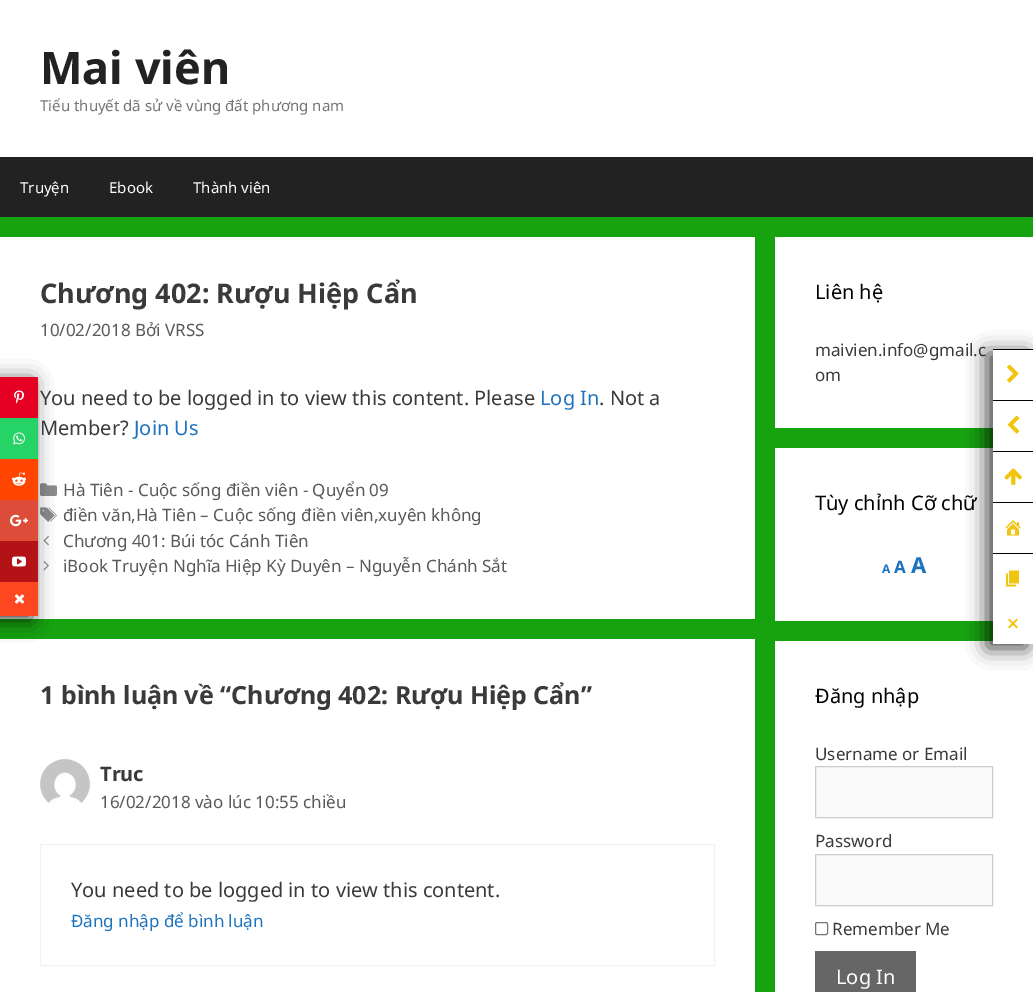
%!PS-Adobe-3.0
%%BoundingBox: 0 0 1033 992
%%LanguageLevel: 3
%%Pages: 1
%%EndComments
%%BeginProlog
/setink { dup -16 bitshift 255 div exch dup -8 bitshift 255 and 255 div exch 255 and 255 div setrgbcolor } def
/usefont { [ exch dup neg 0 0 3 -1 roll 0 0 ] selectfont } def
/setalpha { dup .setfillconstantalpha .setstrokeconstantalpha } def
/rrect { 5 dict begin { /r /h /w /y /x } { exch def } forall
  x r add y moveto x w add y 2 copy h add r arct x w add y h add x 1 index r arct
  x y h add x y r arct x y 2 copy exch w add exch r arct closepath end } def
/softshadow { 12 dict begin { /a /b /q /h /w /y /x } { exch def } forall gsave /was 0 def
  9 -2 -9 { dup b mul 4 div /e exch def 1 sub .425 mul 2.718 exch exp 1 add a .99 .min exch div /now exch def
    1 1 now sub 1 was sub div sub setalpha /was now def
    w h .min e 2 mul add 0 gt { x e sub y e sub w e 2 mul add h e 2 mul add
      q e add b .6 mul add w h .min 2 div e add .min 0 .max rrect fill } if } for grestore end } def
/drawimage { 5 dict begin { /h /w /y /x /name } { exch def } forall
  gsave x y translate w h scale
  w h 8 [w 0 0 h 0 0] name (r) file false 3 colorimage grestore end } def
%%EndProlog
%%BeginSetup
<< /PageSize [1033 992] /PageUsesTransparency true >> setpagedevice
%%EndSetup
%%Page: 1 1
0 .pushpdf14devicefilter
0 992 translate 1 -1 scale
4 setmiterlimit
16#17A310 setink
0 0 1033 992 rectfill
16#FFFFFF setink
0 0 1033 157 rectfill
/NotoSans-Bold 45 usefont
16#222222 setink
40 84 moveto (Mai viên) show
/NotoSans-Regular 15 usefont
16#757575 setink
40 111 moveto (Tiểu thuyết dã sử về vùng đất phương nam) show
16#222222 setink
0 157 1033 60 rectfill
16#FFFFFF setink
[
    [(Truyện) 20 193]
    [(Ebook) 109 193]
    [(Thành viên) 193 193]
] { aload pop moveto show } forall
0 237 755 382 rectfill
(img7.raw) 40 483 17 13 drawimage
(img8.raw) 40 507 17 15 drawimage
(img9.raw) 43 536 6 10 drawimage
(img10.raw) 43 561 6 10 drawimage
0 639 755 353 rectfill
16#000000 setink
-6 381 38 239 0 10 0.75 softshadow
16#E60023 setink
0 377 38 41 rectfill
(img1.raw) 14 390 10 14 drawimage
16#25D366 setink
0 418 38 41 rectfill
(img2.raw) 13 432 12 13 drawimage
16#FF4500 setink
0 459 38 41 rectfill
(img3.raw) 12 472 14 14 drawimage
16#DD4B39 setink
0 500 38 41 rectfill
(img4.raw) 10 514 18 13 drawimage
16#B31217 setink
0 541 38 41 rectfill
(img5.raw) 12 556 14 11 drawimage
16#FD4721 setink
0 582 38 34 rectfill
(img6.raw) 14 594 11 10 drawimage
/NotoSans-Bold 27 usefont
16#3A3A3A setink
40 303 moveto (Chương 402: Rượu Hiệp Cẩn) show
/NotoSans-Regular 17 usefont
16#595959 setink
40 336 moveto (10/02/2018 Bởi VRSS) show
/NotoSans-Regular 20 usefont
16#3A3A3A setink
40 405 moveto (You need to be logged in to view this content. Please) show
16#1E73BE setink
540 405 moveto (Log In) show
16#3A3A3A setink
599 405 moveto (. Not a) show
40 435 moveto (Member?) show
16#1E73BE setink
134 435 moveto (Join Us) show
/NotoSans-Regular 17 usefont
16#595959 setink
[
    [(Hà Tiên - Cuộc sống điền viên - Quyển 09) 63 496]
    [(điền văn,Hà Tiên – Cuộc sống điền viên,xuyên không) 63 521]
    [(Chương 401: Búi tóc Cánh Tiên) 63 547]
    [(iBook Truyện Nghĩa Hiệp Kỳ Duyên – Nguyễn Chánh Sắt) 63 572]
] { aload pop moveto show } forall
/NotoSans-Bold 25 usefont
16#3A3A3A setink
40 704 moveto (1 bình luận về “Chương 402: Rượu Hiệp Cẩn”) show
(img11.raw) 40 759 50 47 drawimage
/NotoSans-Bold 20 usefont
100 781 moveto (Truc) show
/NotoSans-Regular 17 usefont
16#595959 setink
100 808 moveto (16/02/2018 vào lúc 10:55 chiều) show
16#F2F2F2 setink
40.5 844.5 674 121 rectstroke
/NotoSans-Regular 20 usefont
16#3A3A3A setink
71 897 moveto (You need to be logged in to view this content.) show
/NotoSans-Regular 17 usefont
16#1E73BE setink
71 927 moveto (Đăng nhập để bình luận) show
16#FFFFFF setink
775 237 258 191 rectfill
/NotoSans-Regular 20 usefont
16#000000 setink
815 299 moveto (Liên hệ) show
/NotoSans-Regular 17 usefont
16#3A3A3A setink
815 356 moveto (maivien.info@gmail.c) show
815 381 moveto (om) show
16#FFFFFF setink
775 448 258 173 rectfill
/NotoSans-Regular 20 usefont
16#000000 setink
815 510 moveto (Tùy chỉnh Cỡ chữ) show
/NotoSans-Bold 12 usefont
16#1E73BE setink
882 573 moveto (A) show
/NotoSans-Bold 17 usefont
894 573 moveto (A) show
/NotoSans-Bold 22 usefont
911 573 moveto (A) show
16#FFFFFF setink
775 641 258 351 rectfill
/NotoSans-Regular 20 usefont
16#000000 setink
815 703 moveto (Đăng nhập) show
/NotoSans-Regular 17 usefont
16#3A3A3A setink
815 760 moveto (Username or Email) show
16#FAFAFA setink
815.5 766.5 moveto 992.5 766.5 lineto 992.5 817.5 lineto 815.5 817.5 lineto closepath gsave fill grestore
16#CCCCCC setink
stroke
16#3A3A3A setink
815 847 moveto (Password) show
16#FAFAFA setink
815.5 854.5 moveto 992.5 854.5 lineto 992.5 905.5 lineto 815.5 905.5 lineto closepath gsave fill grestore
16#CCCCCC setink
stroke
16#767676 setink
815.5 922.5 12 12 1.5 rrect stroke
16#3A3A3A setink
832 935 moveto (Remember Me) show
16#666666 setink
815 951 101 41 rectfill
/NotoSans-Regular 20 usefont
16#FFFFFF setink
836 984 moveto (Log In) show
gsave
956 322 moveto 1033 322 lineto 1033 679 lineto 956 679 lineto closepath 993 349 moveto 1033 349 lineto 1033 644 lineto 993 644 lineto closepath eoclip newpath
16#000000 setink
987 353 40 295 0 10 0.75 softshadow
grestore
16#000000 setink
993 349 40 1 rectfill
993 400 40 1 rectfill
(img12.raw) 1007 364 12 19 drawimage
16#FFFFFF setink
993 428 40 20 rectfill
16#000000 setink
993 451 40 1 rectfill
(img13.raw) 1007 415 13 19 drawimage
993 502 40 1 rectfill
(img14.raw) 1004 468 18 17 drawimage
993 553 40 1 rectfill
(img15.raw) 1005 520 16 16 drawimage
(img16.raw) 1006 570 13 17 drawimage
16#FFFFFF setink
993 621 40 23 rectfill
(img17.raw) 1008 618 10 11 drawimage
.poppdf14devicefilter showpage
%%EOF
